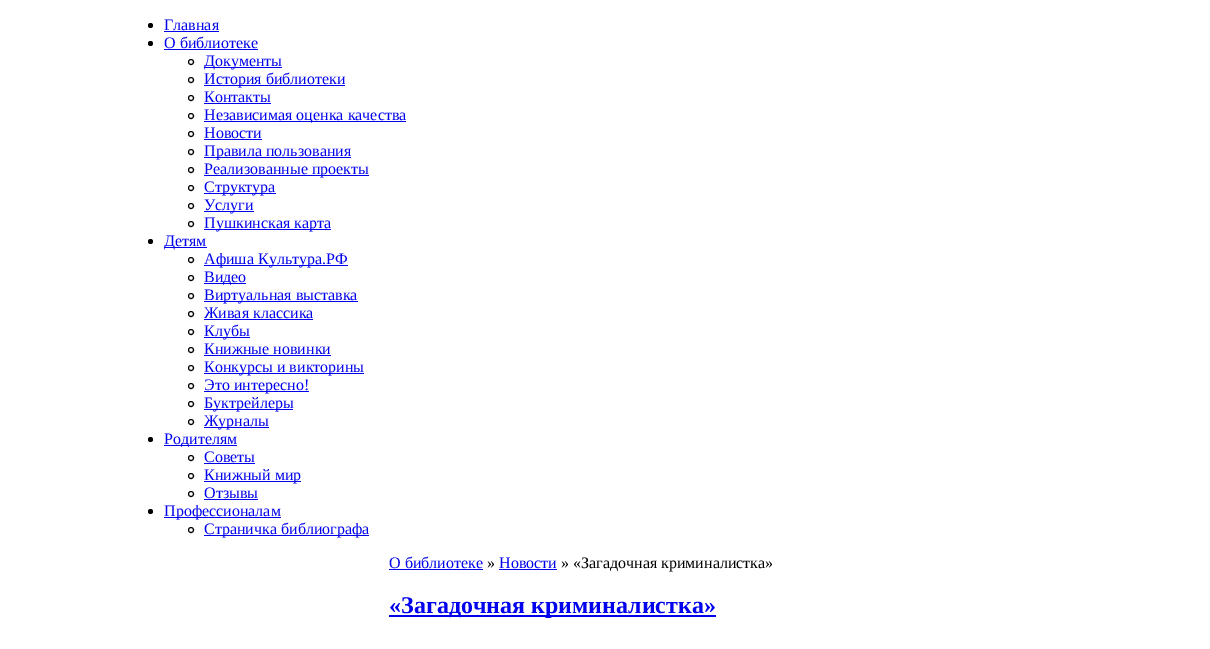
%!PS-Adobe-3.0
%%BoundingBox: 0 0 1210 649
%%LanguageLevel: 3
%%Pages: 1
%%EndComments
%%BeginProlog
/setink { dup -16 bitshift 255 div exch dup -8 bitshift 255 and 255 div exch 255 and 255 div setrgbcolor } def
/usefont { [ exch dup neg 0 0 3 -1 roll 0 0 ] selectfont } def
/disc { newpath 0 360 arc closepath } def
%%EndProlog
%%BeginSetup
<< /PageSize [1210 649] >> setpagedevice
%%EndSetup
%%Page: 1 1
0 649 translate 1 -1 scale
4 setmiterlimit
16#FFFFFF setink
0 0 1210 649 rectfill
16#000000 setink
150.5 25.5 2.5 disc fill
/LiberationSerif-Regular 16 usefont
16#0000EE setink
164 30 moveto (Главная) show
164 31 55 1 rectfill
16#000000 setink
150.5 43.5 2.5 disc fill
16#0000EE setink
164 48 moveto (О библиотеке) show
164 49 94 1 rectfill
16#000000 setink
191 62 2.5 disc stroke
16#0000EE setink
204 67 78 1 rectfill
204 66 moveto (Документы) show
16#000000 setink
191 80 2.5 disc stroke
16#0000EE setink
204 85 141 1 rectfill
204 84 moveto (История библиотеки) show
16#000000 setink
191 98 2.5 disc stroke
16#0000EE setink
204 102 moveto (Контакты) show
204 103 67 1 rectfill
16#000000 setink
191 116 2.5 disc stroke
16#0000EE setink
204 121 202 1 rectfill
204 120 moveto (Независимая оценка качества) show
16#000000 setink
191 134 2.5 disc stroke
16#0000EE setink
204 138 moveto (Новости) show
204 139 58 1 rectfill
16#000000 setink
191 152 2.5 disc stroke
16#0000EE setink
204 157 147 1 rectfill
204 156 moveto (Правила пользования) show
16#000000 setink
191 170 2.5 disc stroke
16#0000EE setink
204 175 165 1 rectfill
204 174 moveto (Реализованные проекты) show
16#000000 setink
191 188 2.5 disc stroke
16#0000EE setink
204 193 72 1 rectfill
204 192 moveto (Структура) show
16#000000 setink
191 206 2.5 disc stroke
16#0000EE setink
204 211 50 1 rectfill
204 210 moveto (Услуги) show
16#000000 setink
191 224 2.5 disc stroke
16#0000EE setink
204 229 127 1 rectfill
204 228 moveto (Пушкинская карта) show
16#000000 setink
150.5 241.5 2.5 disc fill
16#0000EE setink
164 247 43 1 rectfill
164 246 moveto (Детям) show
16#000000 setink
191 260 2.5 disc stroke
16#0000EE setink
204 265 144 1 rectfill
204 264 moveto (Афиша Культура.РФ) show
16#000000 setink
191 278 2.5 disc stroke
16#0000EE setink
204 283 42 1 rectfill
204 282 moveto (Видео) show
16#000000 setink
191 296 2.5 disc stroke
16#0000EE setink
204 301 154 1 rectfill
204 300 moveto (Виртуальная выставка) show
16#000000 setink
191 314 2.5 disc stroke
16#0000EE setink
204 318 moveto (Живая классика) show
204 319 109 1 rectfill
16#000000 setink
191 332 2.5 disc stroke
16#0000EE setink
204 337 46 1 rectfill
204 336 moveto (Клубы) show
16#000000 setink
191 350 2.5 disc stroke
16#0000EE setink
204 354 moveto (Книжные новинки) show
204 355 127 1 rectfill
16#000000 setink
191 368 2.5 disc stroke
16#0000EE setink
204 373 160 1 rectfill
204 372 moveto (Конкурсы и викторины) show
16#000000 setink
191 386 2.5 disc stroke
16#0000EE setink
204 391 105 1 rectfill
204 390 moveto (Это интересно!) show
16#000000 setink
191 404 2.5 disc stroke
16#0000EE setink
204 409 89 1 rectfill
204 408 moveto (Буктрейлеры) show
16#000000 setink
191 422 2.5 disc stroke
16#0000EE setink
204 427 65 1 rectfill
204 426 moveto (Журналы) show
16#000000 setink
150.5 439.5 2.5 disc fill
16#0000EE setink
164 445 73 1 rectfill
164 444 moveto (Родителям) show
16#000000 setink
191 458 2.5 disc stroke
16#0000EE setink
204 462 moveto (Советы) show
204 463 51 1 rectfill
16#000000 setink
191 476 2.5 disc stroke
16#0000EE setink
204 481 97 1 rectfill
204 480 moveto (Книжный мир) show
16#000000 setink
191 494 2.5 disc stroke
16#0000EE setink
204 498 moveto (Отзывы) show
204 499 54 1 rectfill
16#000000 setink
150.5 511.5 2.5 disc fill
16#0000EE setink
164 517 117 1 rectfill
164 516 moveto (Профессионалам) show
16#000000 setink
191 530 2.5 disc stroke
16#0000EE setink
204 535 165 1 rectfill
204 534 moveto (Страничка библиографа) show
389 568 moveto (О библиотеке) show
389 569 94 1 rectfill
16#000000 setink
487 568 moveto (») show
16#0000EE setink
499 568 moveto (Новости) show
499 569 58 1 rectfill
16#000000 setink
561 568 moveto (» «Загадочная криминалистка») show
16#0000EE setink
389 615 327 2 rectfill
/LiberationSerif-Bold 24 usefont
389 613 moveto («Загадочная криминалистка») show
showpage
%%EOF
